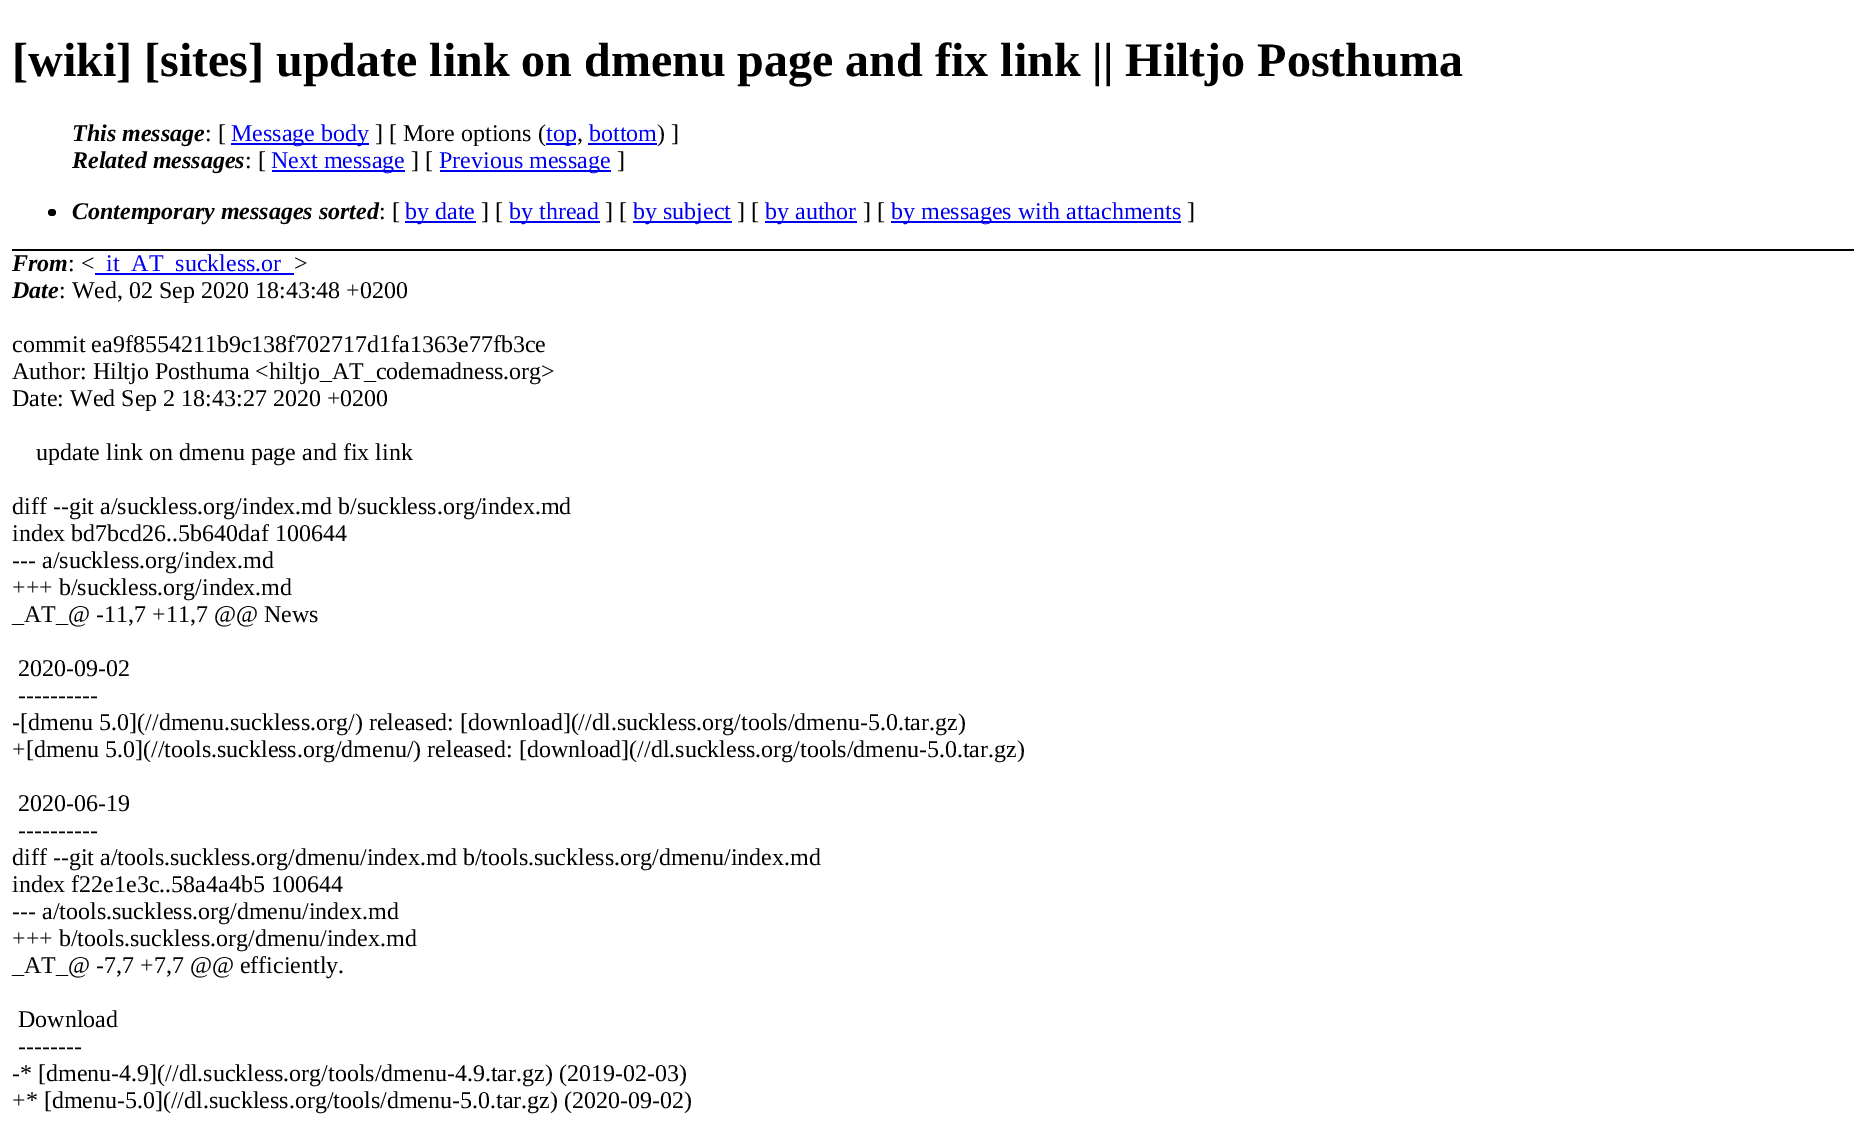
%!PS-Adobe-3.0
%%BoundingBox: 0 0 1865 1124
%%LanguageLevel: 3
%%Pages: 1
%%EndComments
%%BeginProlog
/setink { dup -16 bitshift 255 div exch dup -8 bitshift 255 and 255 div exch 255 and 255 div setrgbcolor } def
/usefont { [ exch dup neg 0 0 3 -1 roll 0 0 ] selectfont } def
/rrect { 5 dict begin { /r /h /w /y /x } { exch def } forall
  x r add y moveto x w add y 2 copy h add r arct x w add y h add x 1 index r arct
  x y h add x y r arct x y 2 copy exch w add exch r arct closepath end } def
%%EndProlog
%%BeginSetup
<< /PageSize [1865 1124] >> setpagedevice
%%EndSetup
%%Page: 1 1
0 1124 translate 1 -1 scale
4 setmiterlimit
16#FFFFFF setink
0 0 1865 1124 rectfill
16#000000 setink
12 249 1842 2 rectfill
/LiberationSerif-Bold 48 usefont
12 76 moveto ([wiki] [sites] update link on dmenu page and fix link || Hiltjo Posthuma) show
/LiberationSerif-BoldItalic 24 usefont
72 141 moveto (This message) show
/LiberationSerif-Regular 24 usefont
205 141 moveto (: [) show
16#0000EE setink
231 143 138 2 rectfill
231 141 moveto (Message body) show
16#000000 setink
375 141 moveto (] [ More options \() show
16#0000EE setink
546 143 30 2 rectfill
546 141 moveto (top) show
16#000000 setink
577 141 moveto (,) show
16#0000EE setink
589 141 moveto (bottom) show
588 143 69 2 rectfill
16#000000 setink
657 141 moveto (\) ]) show
/LiberationSerif-BoldItalic 24 usefont
72 168 moveto (Related messages) show
/LiberationSerif-Regular 24 usefont
245 168 moveto (: [) show
16#0000EE setink
272 170 133 2 rectfill
271 168 moveto (Next message) show
16#000000 setink
411 168 moveto (] [) show
16#0000EE setink
440 170 171 2 rectfill
439 168 moveto (Previous message) show
16#000000 setink
617 168 moveto (]) show
48 209 8 7 3.5 rrect fill
/LiberationSerif-BoldItalic 24 usefont
72 219 moveto (Contemporary messages sorted) show
/LiberationSerif-Regular 24 usefont
379 219 moveto (: [) show
16#0000EE setink
405 221 71 2 rectfill
405 219 moveto (by date) show
16#000000 setink
481 219 moveto (] [) show
16#0000EE setink
510 221 90 2 rectfill
509 219 moveto (by thread) show
16#000000 setink
605 219 moveto (] [) show
16#0000EE setink
633 221 99 2 rectfill
633 219 moveto (by subject) show
16#000000 setink
737 219 moveto (] [) show
16#0000EE setink
765 221 92 2 rectfill
765 219 moveto (by author) show
16#000000 setink
863 219 moveto (] [) show
16#0000EE setink
891 221 290 2 rectfill
891 219 moveto (by messages with attachments) show
16#000000 setink
1187 219 moveto (]) show
/LiberationSerif-BoldItalic 24 usefont
12 271 moveto (From) show
/LiberationSerif-Regular 24 usefont
68 271 moveto (: <) show
16#0000EE setink
95 273 199 2 rectfill
106 271 moveto (it_AT_suckless.or) show
16#000000 setink
294 271 moveto (>) show
/LiberationSerif-BoldItalic 24 usefont
12 298 moveto (Date) show
/LiberationSerif-Regular 24 usefont
[
    [(: Wed, 02 Sep 2020 18:43:48 +0200) 59 298]
    [(commit ea9f8554211b9c138f702717d1fa1363e77fb3ce) 12 352]
    [(Author: Hiltjo Posthuma <hiltjo_AT_codemadness.org>) 12 379]
    [(Date: Wed Sep 2 18:43:27 2020 +0200) 12 406]
    [(update link on dmenu page and fix link) 36 460]
    [(diff --git a/suckless.org/index.md b/suckless.org/index.md) 12 514]
    [(index bd7bcd26..5b640daf 100644) 12 541]
    [(--- a/suckless.org/index.md) 12 568]
    [(+++ b/suckless.org/index.md) 12 595]
    [(_AT_@ -11,7 +11,7 @@ News) 12 622]
    [(2020-09-02) 18 676]
    [(----------) 18 703]
    [(-[dmenu 5.0]\(//dmenu.suckless.org/\) released: [download]\(//dl.suckless.org/tools/dmenu-5.0.tar.gz\)) 12 730]
    [(+[dmenu 5.0]\(//tools.suckless.org/dmenu/\) released: [download]\(//dl.suckless.org/tools/dmenu-5.0.tar.gz\)) 12 757]
    [(2020-06-19) 18 811]
    [(----------) 18 838]
    [(diff --git a/tools.suckless.org/dmenu/index.md b/tools.suckless.org/dmenu/index.md) 12 865]
    [(index f22e1e3c..58a4a4b5 100644) 12 892]
    [(--- a/tools.suckless.org/dmenu/index.md) 12 919]
    [(+++ b/tools.suckless.org/dmenu/index.md) 12 946]
    [(_AT_@ -7,7 +7,7 @@ efficiently.) 12 973]
    [(Download) 18 1027]
    [(--------) 18 1054]
    [(-* [dmenu-4.9]\(//dl.suckless.org/tools/dmenu-4.9.tar.gz\) \(2019-02-03\)) 12 1081]
    [(+* [dmenu-5.0]\(//dl.suckless.org/tools/dmenu-5.0.tar.gz\) \(2020-09-02\)) 12 1108]
] { aload pop moveto show } forall
showpage
%%EOF
